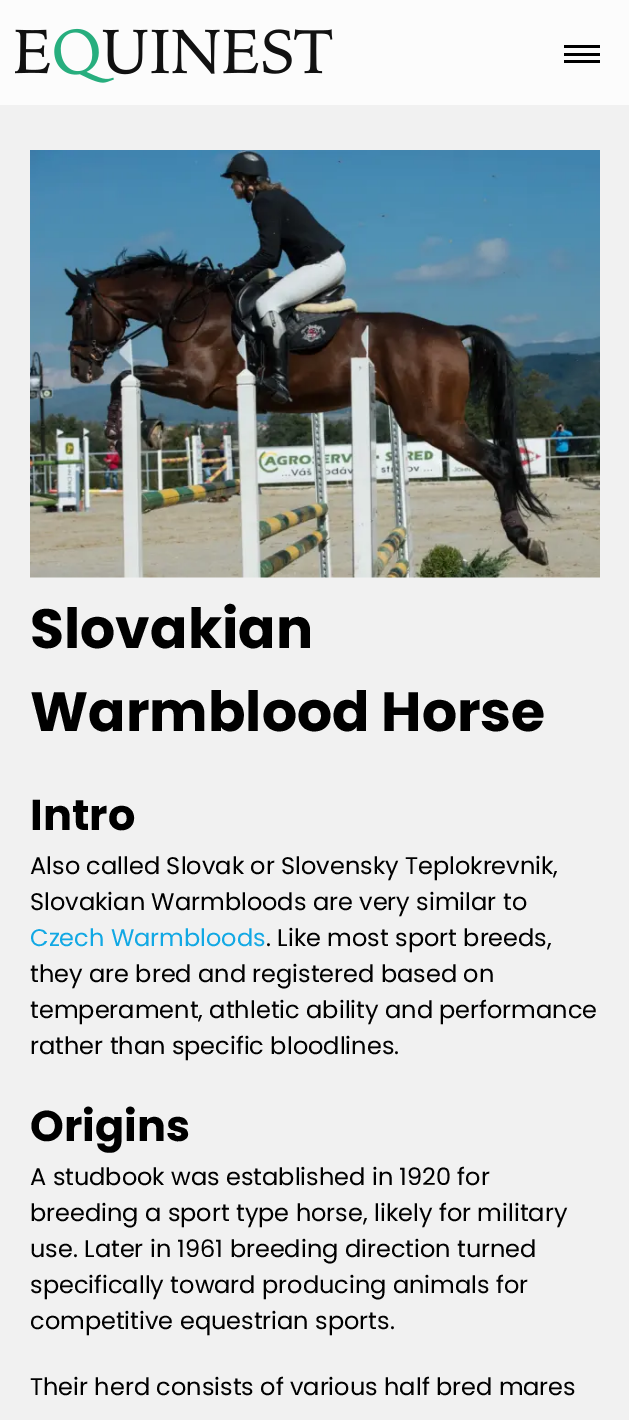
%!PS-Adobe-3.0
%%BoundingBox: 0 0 629 1420
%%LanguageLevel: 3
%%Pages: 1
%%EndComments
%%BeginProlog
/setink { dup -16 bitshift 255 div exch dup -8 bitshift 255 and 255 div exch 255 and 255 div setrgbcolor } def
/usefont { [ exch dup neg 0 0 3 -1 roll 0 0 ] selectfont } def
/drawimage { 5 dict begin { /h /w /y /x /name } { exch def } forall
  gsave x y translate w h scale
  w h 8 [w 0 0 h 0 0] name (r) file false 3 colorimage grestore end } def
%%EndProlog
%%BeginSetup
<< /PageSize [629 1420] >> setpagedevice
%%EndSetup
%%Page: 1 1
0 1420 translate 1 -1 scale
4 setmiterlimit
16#F1F1F1 setink
0 0 629 1420 rectfill
16#FCFCFC setink
0 0 629 105 rectfill
(img1.raw) 15 28 318 55 drawimage
[
    [564 53 36 3 16#000000]
    [564 45 36 3 16#000000]
    [564 60 36 3 16#000000]
] { aload pop setink rectfill } forall
(img2.raw) 30 150 570 428 drawimage
/Poppins-Bold 55.25 usefont
30 648 moveto (Slovakian) show
30 731 moveto (Warmblood Horse) show
/Poppins-Bold 43 usefont
30 830 moveto (Intro) show
/Poppins-Regular 24 usefont
30 874 moveto (Also called Slovak or Slovensky Teplokrevnik,) show
30 910 moveto (Slovakian Warmbloods are very similar to) show
16#11A8E4 setink
30 946 moveto (Czech Warmbloods) show
16#000000 setink
[
    [(. Like most sport breeds,) 266 946]
    [(they are bred and registered based on) 30 982]
    [(temperament, athletic ability and performance) 30 1018]
    [(rather than specific bloodlines.) 30 1054]
] { aload pop moveto show } forall
/Poppins-Bold 43 usefont
30 1141 moveto (Origins) show
/Poppins-Regular 24 usefont
[
    [(A studbook was established in 1920 for) 30 1185]
    [(breeding a sport type horse, likely for military) 30 1221]
    [(use. Later in 1961 breeding direction turned) 30 1257]
    [(specifically toward producing animals for) 30 1293]
    [(competitive equestrian sports.) 30 1329]
    [(Their herd consists of various half bred mares) 30 1395]
] { aload pop moveto show } forall
showpage
%%EOF
